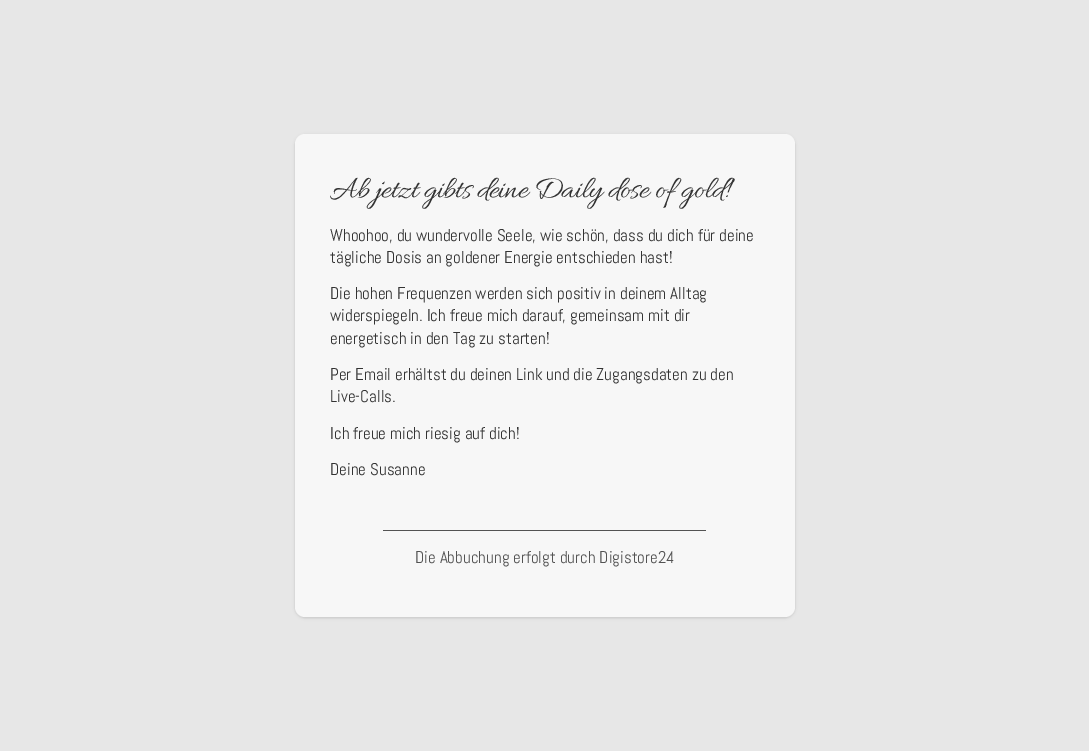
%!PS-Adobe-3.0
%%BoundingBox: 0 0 1089 751
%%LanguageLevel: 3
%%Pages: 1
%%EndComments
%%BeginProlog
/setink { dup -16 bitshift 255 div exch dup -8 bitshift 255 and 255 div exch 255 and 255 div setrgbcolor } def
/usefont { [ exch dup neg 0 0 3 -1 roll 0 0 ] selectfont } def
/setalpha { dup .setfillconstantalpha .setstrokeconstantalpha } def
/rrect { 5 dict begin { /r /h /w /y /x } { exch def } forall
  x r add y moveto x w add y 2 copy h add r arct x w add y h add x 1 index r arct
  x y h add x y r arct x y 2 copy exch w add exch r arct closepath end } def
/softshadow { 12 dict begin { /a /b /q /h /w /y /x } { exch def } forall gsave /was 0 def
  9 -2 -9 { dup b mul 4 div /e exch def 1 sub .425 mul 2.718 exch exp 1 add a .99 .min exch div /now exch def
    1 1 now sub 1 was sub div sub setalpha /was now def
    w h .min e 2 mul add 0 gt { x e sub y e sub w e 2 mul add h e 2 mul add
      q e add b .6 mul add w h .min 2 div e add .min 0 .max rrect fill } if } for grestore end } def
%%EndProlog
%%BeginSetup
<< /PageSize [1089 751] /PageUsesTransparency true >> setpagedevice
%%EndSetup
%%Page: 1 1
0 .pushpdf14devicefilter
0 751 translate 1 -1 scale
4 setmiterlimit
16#E7E7E7 setink
0 0 1089 751 rectfill
16#000000 setink
296 136 498 481 9 1 0.1 softshadow
295 135 500 483 10 1.5 0.1 softshadow
16#F7F7F7 setink
295 134 500 483 10 rrect fill
/Allura-Regular 32 usefont
16#333333 setink
330 197 moveto -0.5 0 (Ab jetzt gibts deine Daily dose of gold!) ashow
/Abel-Regular 17 usefont
[
    [(Whoohoo, du wundervolle Seele, wie schön, dass du dich für deine) 330 241]
    [(tägliche Dosis an goldener Energie entschieden hast!) 330 263]
    [(Die hohen Frequenzen werden sich positiv in deinem Alltag) 330 299]
    [(widerspiegeln. Ich freue mich darauf, gemeinsam mit dir) 330 321]
    [(energetisch in den Tag zu starten!) 330 344]
    [(Per Email erhältst du deinen Link und die Zugangsdaten zu den) 330 380]
    [(Live-Calls.) 330 402]
    [(Ich freue mich riesig auf dich!) 330 439]
    [(Deine Susanne) 330 475]
] { aload pop moveto show } forall
16#535353 setink
383 530 323 1 rectfill
415 563 moveto (Die Abbuchung erfolgt durch Digistore24) show
.poppdf14devicefilter showpage
%%EOF
